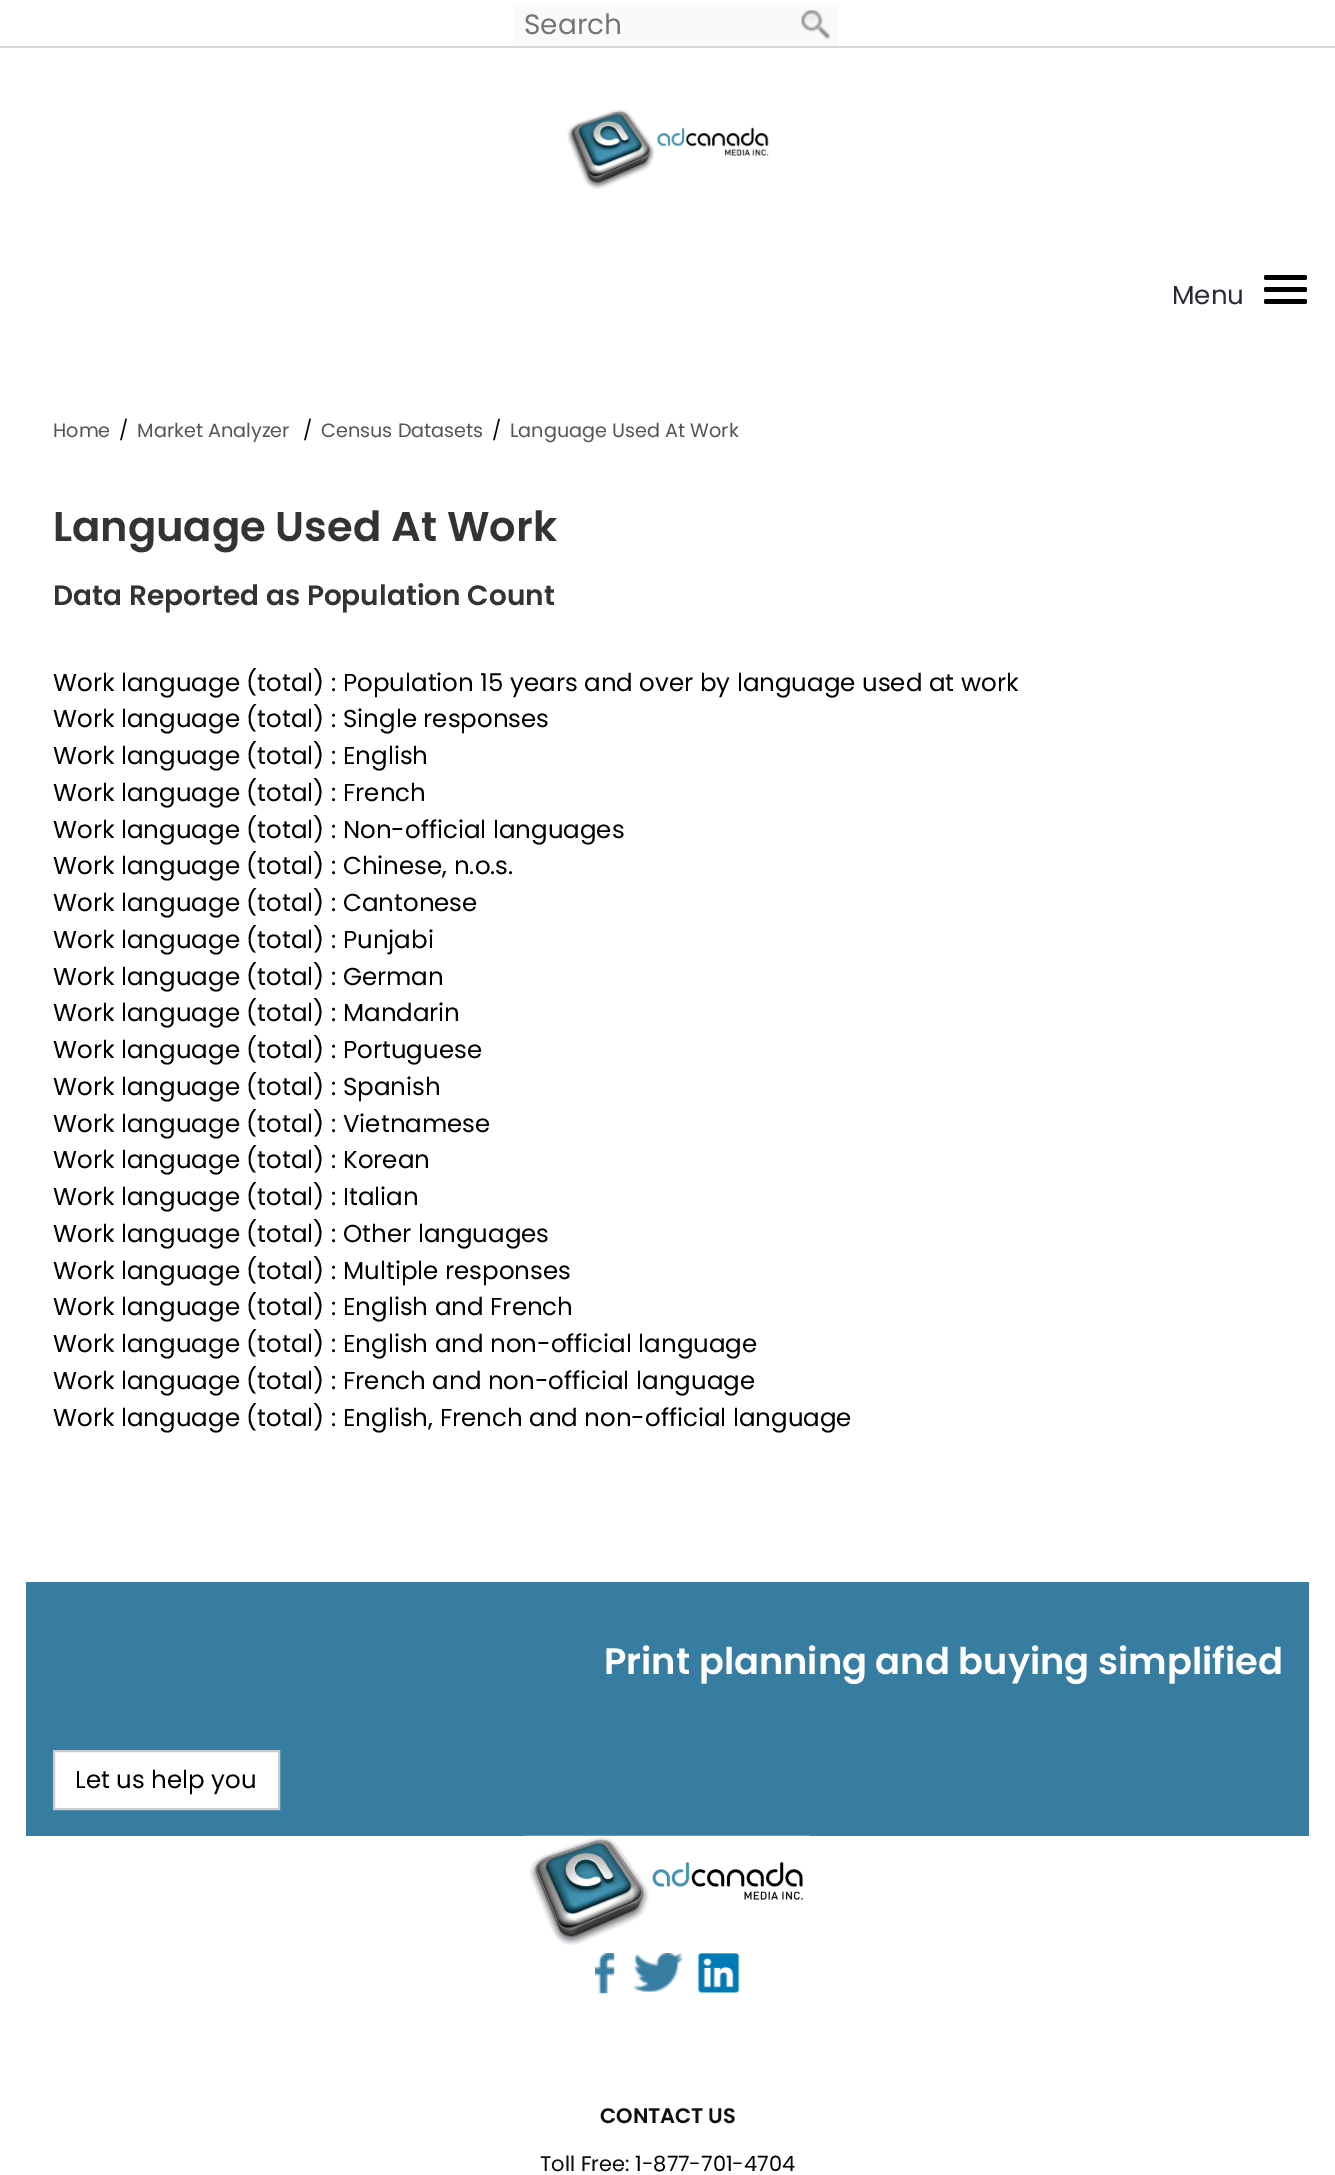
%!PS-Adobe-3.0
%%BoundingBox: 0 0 1335 2175
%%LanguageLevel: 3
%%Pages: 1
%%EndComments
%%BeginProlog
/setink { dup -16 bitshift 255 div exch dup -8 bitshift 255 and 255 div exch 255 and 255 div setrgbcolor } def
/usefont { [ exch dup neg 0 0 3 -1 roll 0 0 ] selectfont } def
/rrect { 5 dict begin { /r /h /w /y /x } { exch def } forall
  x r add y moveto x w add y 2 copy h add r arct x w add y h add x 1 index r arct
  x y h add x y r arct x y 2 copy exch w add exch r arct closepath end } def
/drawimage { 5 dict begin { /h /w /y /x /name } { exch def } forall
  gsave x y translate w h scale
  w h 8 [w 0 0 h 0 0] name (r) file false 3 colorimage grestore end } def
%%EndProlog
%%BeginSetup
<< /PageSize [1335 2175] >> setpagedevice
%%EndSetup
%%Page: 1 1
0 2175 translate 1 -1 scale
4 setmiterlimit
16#FFFFFF setink
0 0 1335 2175 rectfill
16#D7D7D7 setink
0 46 1335 2 rectfill
16#FAFAFA setink
513 4 325 42 rectfill
/Poppins-Regular 28 usefont
16#757575 setink
524 34 moveto (Search) show
(img1.raw) 801 10 29 29 drawimage
(img2.raw) 567 109 202 80 drawimage
16#000000 setink
1264 275 43 5 2 rrect fill
/Poppins-Regular 26 usefont
16#252A35 setink
1172 304 moveto (Menu) show
16#000000 setink
1264 287 43 5 2 rrect fill
1264 299 43 5 2 rrect fill
/Poppins-Regular 19.25 usefont
16#555555 setink
53 437 moveto (Home) show
16#000000 setink
119 437 moveto (/) show
16#555555 setink
137 437 moveto (Market Analyzer) show
16#000000 setink
303 437 moveto (/) show
16#555555 setink
321 437 moveto (Census Datasets) show
16#000000 setink
492 437 moveto (/) show
16#555555 setink
510 437 moveto (Language Used At Work) show
/Poppins-SemiBold 41.6 usefont
16#333333 setink
53 541 moveto (Language Used At Work) show
/Poppins-SemiBold 28 usefont
53 605 moveto (Data Reported as Population Count) show
/Poppins-Regular 24.5 usefont
16#000000 setink
[
    [(Work language \(total\) : Population 15 years and over by language used at work) 53 691]
    [(Work language \(total\) : Single responses) 53 727]
    [(Work language \(total\) : English) 53 764]
    [(Work language \(total\) : French) 53 801]
    [(Work language \(total\) : Non-official languages) 53 838]
    [(Work language \(total\) : Chinese, n.o.s.) 53 874]
    [(Work language \(total\) : Cantonese) 53 911]
    [(Work language \(total\) : Punjabi) 53 948]
    [(Work language \(total\) : German) 53 985]
    [(Work language \(total\) : Mandarin) 53 1021]
    [(Work language \(total\) : Portuguese) 53 1058]
    [(Work language \(total\) : Spanish) 53 1095]
    [(Work language \(total\) : Vietnamese) 53 1132]
    [(Work language \(total\) : Korean) 53 1168]
    [(Work language \(total\) : Italian) 53 1205]
    [(Work language \(total\) : Other languages) 53 1242]
    [(Work language \(total\) : Multiple responses) 53 1279]
    [(Work language \(total\) : English and French) 53 1315]
    [(Work language \(total\) : English and non-official language) 53 1352]
    [(Work language \(total\) : French and non-official language) 53 1389]
    [(Work language \(total\) : English, French and non-official language) 53 1426]
] { aload pop moveto show } forall
16#367DA1 setink
26 1582 1283 254 rectfill
/Poppins-SemiBold 36.75 usefont
16#FFFFFF setink
604 1674 moveto (Print planning and buying simplified) show
54 1751 moveto 279 1751 lineto 279 1809 lineto 54 1809 lineto closepath gsave fill grestore
16#CCCCCC setink
2 setlinewidth
stroke
/Poppins-Regular 24.5 usefont
16#000000 setink
75 1788 moveto (Let us help you) show
(img3.raw) 525 1835 286 110 drawimage
(img4.raw) 595 1953 20 41 drawimage
(img5.raw) 633 1953 50 39 drawimage
(img6.raw) 697 1953 43 40 drawimage
/Poppins-SemiBold 21 usefont
16#0F0F0F setink
600 2123 moveto (CONTACT US) show
/Poppins-Regular 21 usefont
540 2171 moveto (Toll Free:) show
16#000000 setink
635 2171 moveto (1-877-701-4704) show
showpage
%%EOF
